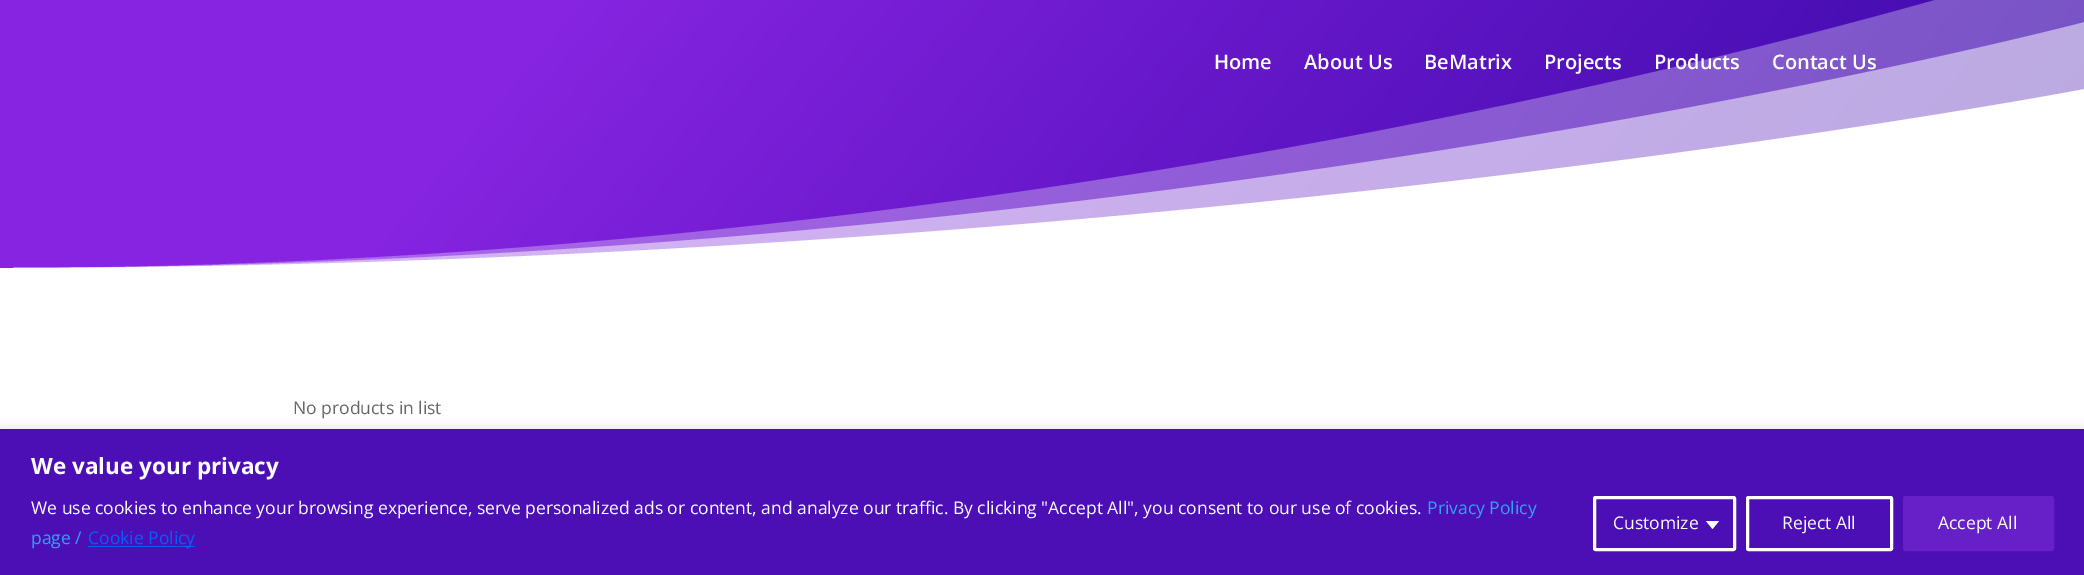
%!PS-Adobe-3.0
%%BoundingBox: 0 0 2084 575
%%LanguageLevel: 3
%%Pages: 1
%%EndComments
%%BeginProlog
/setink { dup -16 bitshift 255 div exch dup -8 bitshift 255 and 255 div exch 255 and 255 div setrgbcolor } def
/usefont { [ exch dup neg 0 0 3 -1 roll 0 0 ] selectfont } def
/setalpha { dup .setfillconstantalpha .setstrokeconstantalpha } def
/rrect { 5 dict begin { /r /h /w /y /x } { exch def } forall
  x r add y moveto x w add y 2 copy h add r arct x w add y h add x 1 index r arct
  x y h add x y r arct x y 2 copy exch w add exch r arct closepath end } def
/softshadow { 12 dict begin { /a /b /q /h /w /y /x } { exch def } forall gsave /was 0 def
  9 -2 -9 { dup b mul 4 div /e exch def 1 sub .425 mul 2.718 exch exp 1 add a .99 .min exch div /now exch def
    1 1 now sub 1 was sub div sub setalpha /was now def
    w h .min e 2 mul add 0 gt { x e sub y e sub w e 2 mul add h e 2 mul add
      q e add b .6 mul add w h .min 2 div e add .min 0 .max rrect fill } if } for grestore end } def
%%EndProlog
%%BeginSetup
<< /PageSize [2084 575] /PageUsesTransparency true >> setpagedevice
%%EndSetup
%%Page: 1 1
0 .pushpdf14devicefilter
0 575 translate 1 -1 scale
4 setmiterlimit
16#FFFFFF setink
0 0 2084 575 rectfill
gsave 0 0 moveto 2084 0 lineto 2084 268 lineto 0 268 lineto closepath clip newpath
<< /ShadingType 2 /ColorSpace /DeviceRGB /Coords [365 -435 1720 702] /Extend [true true] /Function << /FunctionType 3 /Domain [0 1] /Functions [<< /FunctionType 2 /Domain [0 1] /C0 [0.525 0.141 0.882] /C1 [0.525 0.141 0.882] /N 1 >> << /FunctionType 2 /Domain [0 1] /C0 [0.525 0.141 0.882] /C1 [0.212 0.027 0.651] /N 1 >>] /Bounds [0.25] /Encode [0 1 0 1] >> >> shfill grestore
0.3 setalpha
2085 268 moveto 0 268 lineto 1152 268 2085 -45 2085 -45 curveto closepath fill
0.5 setalpha
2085 268 moveto 0 268 lineto 1152 268 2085 22 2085 22 curveto closepath fill
/OpenSans-SemiBold 20 usefont
1 setalpha
[
    [(Home) 1214 69]
    [(About Us) 1304 69]
    [(BeMatrix) 1424 69]
    [(Projects) 1544 69]
    [(Products) 1654 69]
    [(Contact Us) 1772 69]
] { aload pop moveto show } forall
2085 268 moveto 0 268 lineto 1152 268 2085 89 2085 89 curveto closepath fill
/OpenSans-Regular 17.5 usefont
16#666666 setink
293 414 moveto (No products in list) show
16#ACABAB setink
0 428 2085 146 0 6 0.3 softshadow
16#4C0FB6 setink
0 429 2084 146 rectfill
/OpenSans-Bold 22.5 usefont
16#FFFFFF setink
31 474 moveto (We value your privacy) show
/OpenSans-Regular 17.5 usefont
31 514 moveto (We use cookies to enhance your browsing experience, serve personalized ads or content, and analyze our traffic. By clicking "Accept All", you consent to our use of cookies.) show
16#2EA3F2 setink
1427 514 moveto (Privacy Policy) show
31 544 moveto (page /) show
16#0060FA setink
88 546 107 1 rectfill
88 544 moveto (Cookie Policy) show
16#FFFFFF setink
3 setlinewidth
1594.5 497.5 140 52 1 rrect stroke
1613 529 moveto (Customize) show
1706 521 moveto 1719 521 lineto 1712.5 529 lineto closepath fill
1747.5 497.5 144 52 1 rrect stroke
1782 529 moveto (Reject All) show
16#671FC8 setink
1904.5 497.5 148 52 1 rrect gsave fill grestore
stroke
16#FFFFFF setink
1938 529 moveto (Accept All) show
.poppdf14devicefilter showpage
%%EOF
